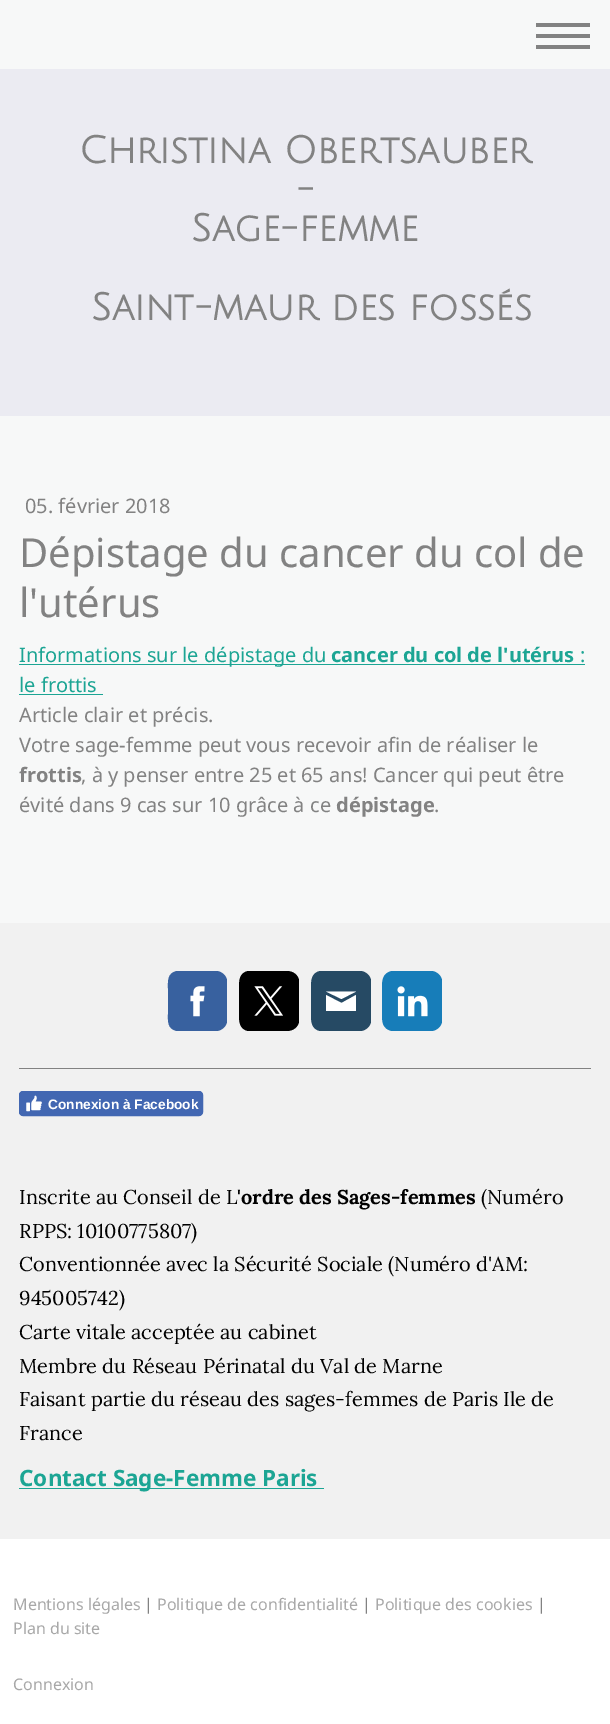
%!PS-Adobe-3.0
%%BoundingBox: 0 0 610 1724
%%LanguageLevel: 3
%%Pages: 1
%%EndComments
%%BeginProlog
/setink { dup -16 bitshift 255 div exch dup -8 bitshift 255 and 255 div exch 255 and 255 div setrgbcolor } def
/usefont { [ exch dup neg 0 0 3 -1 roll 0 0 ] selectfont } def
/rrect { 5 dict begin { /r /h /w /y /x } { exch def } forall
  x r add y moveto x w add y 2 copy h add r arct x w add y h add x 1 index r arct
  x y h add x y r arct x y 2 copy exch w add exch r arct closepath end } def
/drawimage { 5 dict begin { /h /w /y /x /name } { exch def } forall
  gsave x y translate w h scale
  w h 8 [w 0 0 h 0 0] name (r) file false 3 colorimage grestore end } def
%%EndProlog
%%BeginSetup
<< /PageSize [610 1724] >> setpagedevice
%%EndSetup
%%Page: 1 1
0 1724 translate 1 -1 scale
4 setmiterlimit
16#FFFFFF setink
0 0 610 1724 rectfill
[
    [0 0 610 69 16#F7F8F8]
    [536 34 54 4 16#828282]
    [536 23 54 4 16#828282]
    [536 45 54 4 16#828282]
    [0 69 610 347 16#EBEBF2]
] { aload pop setink rectfill } forall
/JuliusSansOne-Bold 37.5 usefont
16#828282 setink
[
    [(Christina Obertsauber) 79 163]
    [(-) 296 202]
    [(Sage-femme) 191 241]
    [(Saint-maur des fossés) 91 320]
] { aload pop moveto show } forall
16#F7F8F8 setink
0 416 610 507 rectfill
/NotoSans-Regular 20 usefont
16#828282 setink
25 513 moveto (05. février 2018) show
/NotoSans-Regular 40 usefont
19 567 moveto (Dépistage du cancer du col de) show
19 617 moveto (l'utérus) show
16#1CA594 setink
19 664 566 1 rectfill
/NotoSans-Regular 20 usefont
19 662 moveto (Informations sur le dépistage du) show
/NotoSans-Bold 20 usefont
331 662 moveto (cancer du col de l'utérus) show
/NotoSans-Regular 20 usefont
580 662 moveto (:) show
19 692 moveto (le frottis) show
19 694 84 1 rectfill
16#828282 setink
19 722 moveto (Article clair et précis.) show
19 752 moveto (Votre sage-femme peut vous recevoir afin de réaliser le) show
/NotoSans-Bold 20 usefont
19 782 moveto (frottis) show
/NotoSans-Regular 20 usefont
81 782 moveto (, à y penser entre 25 et 65 ans! Cancer qui peut être) show
19 812 moveto (évité dans 9 cas sur 10 grâce à ce) show
/NotoSans-Bold 20 usefont
336 812 moveto (dépistage) show
/NotoSans-Regular 20 usefont
434 812 moveto (.) show
16#F1F1F1 setink
0 923 610 616 rectfill
16#38619F setink
216 1031 moveto 177 1031 lineto 167 1029 168 1021 168 1014 curveto 168 989 lineto 168 981 167 973 177 971 curveto 216 971 lineto 221 971 226 975 227 980 curveto 227 1022 lineto 226 1027 221 1031 216 1031 curveto closepath fill
(img1.raw) 190 986 15 31 drawimage
16#000000 setink
287 1031 moveto 248 1031 lineto 239 1029 239 1021 239 1014 curveto 239 989 lineto 239 981 239 973 248 971 curveto 287 971 lineto 293 971 298 975 299 980 curveto 299 1022 lineto 298 1027 293 1031 287 1031 curveto closepath fill
(img2.raw) 254 986 29 30 drawimage
16#264A64 setink
360 1031 moveto 320 1031 lineto 311 1029 311 1021 311 1014 curveto 311 989 lineto 311 981 311 973 320 971 curveto 360 971 lineto 365 971 370 975 371 980 curveto 371 1022 lineto 370 1027 365 1031 360 1031 curveto closepath fill
16#FFFFFF setink
356 1011 moveto 326 1011 lineto 326 995 lineto 341.5 1003 lineto 356 995 lineto closepath 356 991.5 moveto 326 991.5 lineto 341.5 999 lineto closepath fill
16#177DB9 setink
431 1031 moveto 392 1031 lineto 382 1029 382 1021 382 1014 curveto 382 989 lineto 382 981 382 973 392 971 curveto 431 971 lineto 436 971 441 975 442 980 curveto 442 1022 lineto 441 1027 436 1031 431 1031 curveto closepath fill
(img3.raw) 397 986 31 31 drawimage
16#828282 setink
19 1068 572 1 rectfill
16#4267B2 setink
19.5 1091.5 183 24 3.5 rrect gsave fill grestore
stroke
(img4.raw) 26 1095 16 17 drawimage
/LiberationSans-Bold 13.75 usefont
16#FFFFFF setink
48 1109 moveto (Connexion à Facebook) show
/Lora-Regular 20 usefont
16#000000 setink
19 1204 moveto (Inscrite au Conseil de L) show
/Lora-Bold 20 usefont
237 1204 moveto ('ordre des Sages-femmes) show
/Lora-Regular 20 usefont
[
    [(\(Numéro) 481 1204]
    [(RPPS: 10100775807\)) 19 1238]
    [(Conventionnée avec la Sécurité Sociale \(Numéro d'AM:) 19 1271]
    [(945005742\)) 19 1305]
    [(Carte vitale acceptée au cabinet) 19 1339]
    [(Membre du Réseau Périnatal du Val de Marne) 19 1373]
    [(Faisant partie du réseau des sages-femmes de Paris Ile de) 19 1406]
    [(France) 19 1440]
] { aload pop moveto show } forall
16#1CA594 setink
19 1488 305 1 rectfill
/NotoSans-Bold 22.5 usefont
19 1486 moveto (Contact Sage-Femme Paris) show
/NotoSans-Regular 16 usefont
16#A8A8A8 setink
13 1610 moveto (Mentions légales) show
16#828282 setink
144 1610 moveto (|) show
16#A8A8A8 setink
157 1610 moveto (Politique de confidentialité) show
16#828282 setink
362 1610 moveto (|) show
16#A8A8A8 setink
375 1610 moveto (Politique des cookies) show
16#828282 setink
537 1610 moveto (|) show
16#A8A8A8 setink
13 1634 moveto (Plan du site) show
13 1690 moveto (Connexion) show
showpage
%%EOF
